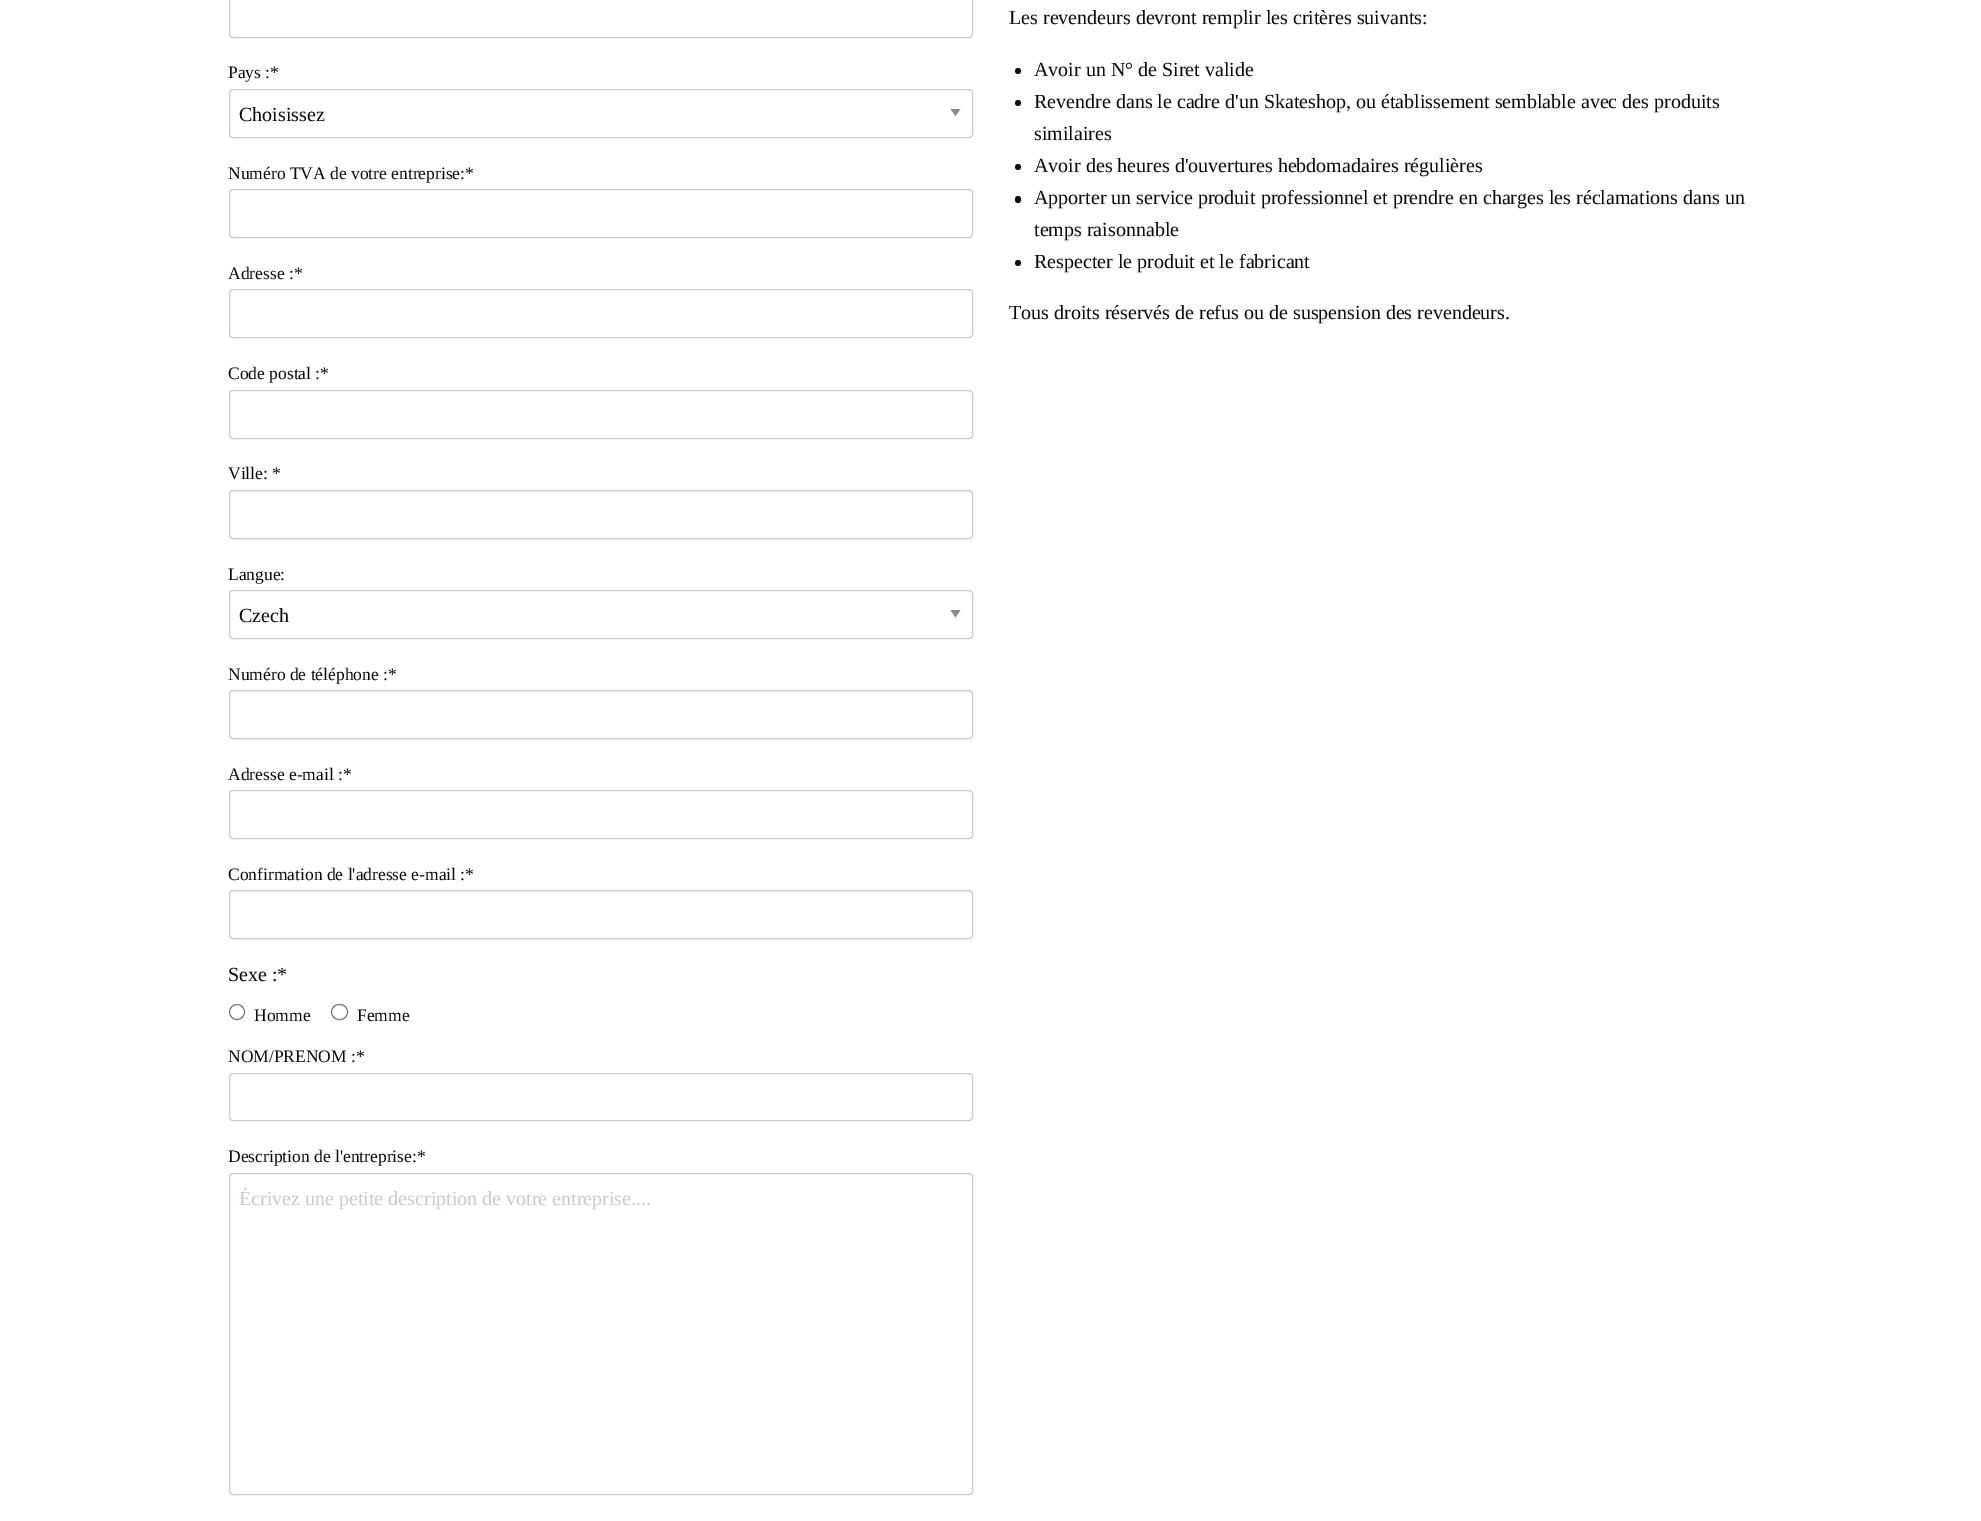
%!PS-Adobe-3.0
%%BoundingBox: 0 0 1981 1521
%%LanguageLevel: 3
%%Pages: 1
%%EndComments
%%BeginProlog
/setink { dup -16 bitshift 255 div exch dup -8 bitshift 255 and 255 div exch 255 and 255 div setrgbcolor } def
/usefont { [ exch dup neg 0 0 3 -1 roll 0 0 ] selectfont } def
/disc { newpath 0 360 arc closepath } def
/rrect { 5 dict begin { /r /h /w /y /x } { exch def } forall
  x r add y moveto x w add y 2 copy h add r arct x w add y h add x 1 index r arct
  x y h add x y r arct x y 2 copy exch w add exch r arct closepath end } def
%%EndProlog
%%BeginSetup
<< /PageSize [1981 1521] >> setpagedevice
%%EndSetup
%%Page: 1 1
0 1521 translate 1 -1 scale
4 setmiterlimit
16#FFFFFF setink
0 0 1981 1521 rectfill
16#CACACA setink
229.5 -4.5 743 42 3.5 rrect stroke
/LiberationSerif-Regular 17.5 usefont
16#0A0A0A setink
228 78 moveto (Pays :*) show
16#8A8A8A setink
950.5 109 moveto 960.5 109 lineto 955.5 116 lineto closepath fill
16#CACACA setink
229.5 89.5 743 48 3.5 rrect stroke
/LiberationSerif-Regular 20 usefont
16#0A0A0A setink
239 121 moveto (Choisissez) show
/LiberationSerif-Regular 17.5 usefont
228 179 moveto (Numéro TVA de votre entreprise:*) show
16#CACACA setink
229.5 189.5 743 48 3.5 rrect stroke
16#0A0A0A setink
228 279 moveto (Adresse :*) show
16#CACACA setink
229.5 289.5 743 48 3.5 rrect stroke
16#0A0A0A setink
228 379 moveto (Code postal :*) show
16#CACACA setink
229.5 390.5 743 48 3.5 rrect stroke
16#0A0A0A setink
228 479 moveto (Ville: *) show
16#CACACA setink
229.5 490.5 743 48 3.5 rrect stroke
16#0A0A0A setink
228 580 moveto (Langue:) show
16#8A8A8A setink
950.5 610 moveto 960.5 610 lineto 955.5 617.5 lineto closepath fill
16#CACACA setink
229.5 590.5 743 48 3.5 rrect stroke
/LiberationSerif-Regular 20 usefont
16#0A0A0A setink
239 622 moveto (Czech) show
/LiberationSerif-Regular 17.5 usefont
228 680 moveto (Numéro de téléphone :*) show
16#CACACA setink
229.5 690.5 743 48 3.5 rrect stroke
16#0A0A0A setink
228 780 moveto (Adresse e-mail :*) show
16#CACACA setink
229.5 790.5 743 48 3.5 rrect stroke
16#0A0A0A setink
228 880 moveto (Confirmation de l'adresse e-mail :*) show
16#CACACA setink
229.5 890.5 743 48 3.5 rrect stroke
/LiberationSerif-Regular 20 usefont
16#0A0A0A setink
228 981 moveto (Sexe :*) show
16#767676 setink
237 1012 7.5 disc stroke
/LiberationSerif-Regular 17.5 usefont
16#0A0A0A setink
254 1021 moveto (Homme) show
16#767676 setink
331.5 1004.5 16 15 7.5 rrect stroke
16#0A0A0A setink
357 1021 moveto (Femme) show
228 1062 moveto (NOM/PRENOM :*) show
16#CACACA setink
229.5 1073.5 743 47 3.5 rrect stroke
16#0A0A0A setink
228 1162 moveto (Description de l'entreprise:*) show
16#CACACA setink
229.5 1173.5 743 321 3.5 rrect stroke
/LiberationSerif-Regular 20 usefont
239 1205 moveto (Écrivez une petite description de votre entreprise....) show
16#0A0A0A setink
1009 24 moveto (Les revendeurs devront remplir les critères suivants:) show
1018 71 3 disc fill
1034 76 moveto (Avoir un N° de Siret valide) show
1018 103 3 disc fill
1034 108 moveto (Revendre dans le cadre d'un Skateshop, ou établissement semblable avec des produits) show
1034 140 moveto (similaires) show
1018 167 3 disc fill
1034 172 moveto (Avoir des heures d'ouvertures hebdomadaires régulières) show
1015 196 6 7 3 rrect fill
1034 204 moveto (Apporter un service produit professionnel et prendre en charges les réclamations dans un) show
1034 236 moveto (temps raisonnable) show
1018 263 3 disc fill
1034 268 moveto (Respecter le produit et le fabricant) show
1009 319 moveto (Tous droits réservés de refus ou de suspension des revendeurs.) show
showpage
%%EOF
